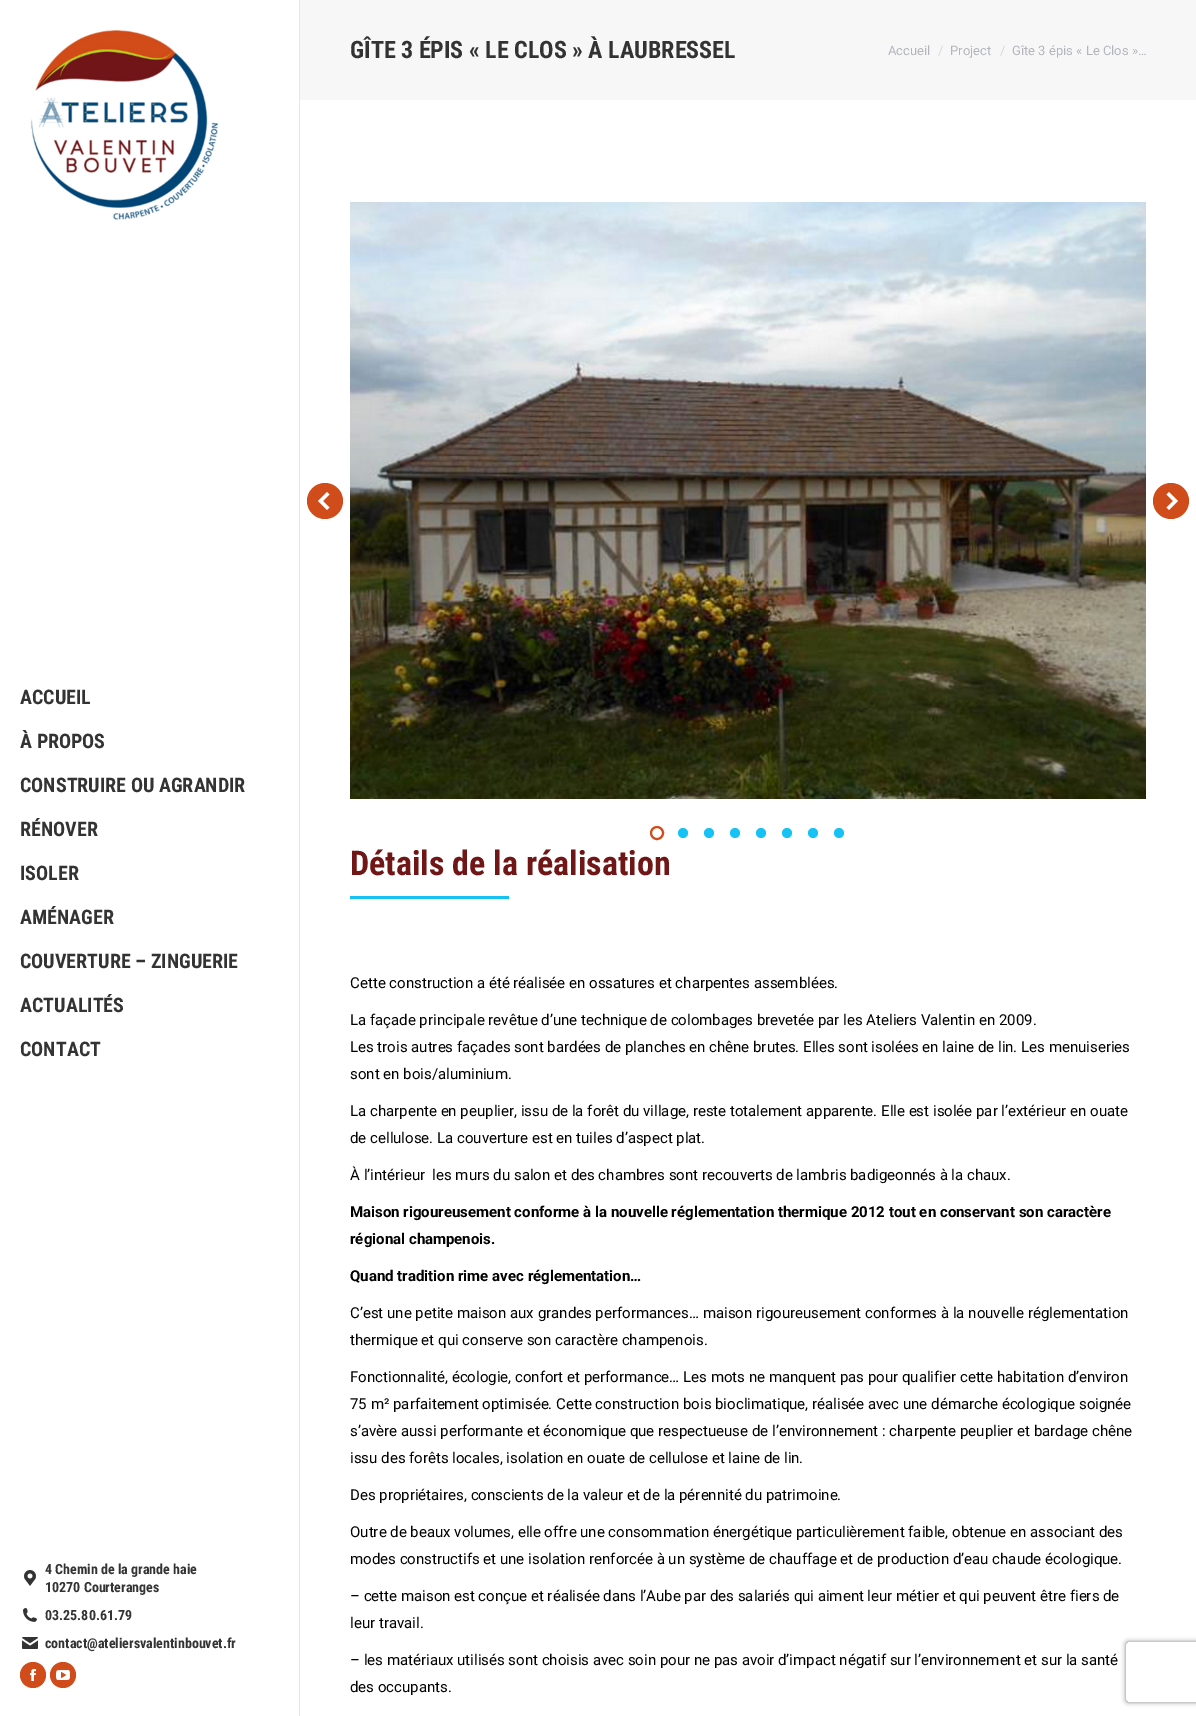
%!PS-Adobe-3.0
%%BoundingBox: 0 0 1196 1716
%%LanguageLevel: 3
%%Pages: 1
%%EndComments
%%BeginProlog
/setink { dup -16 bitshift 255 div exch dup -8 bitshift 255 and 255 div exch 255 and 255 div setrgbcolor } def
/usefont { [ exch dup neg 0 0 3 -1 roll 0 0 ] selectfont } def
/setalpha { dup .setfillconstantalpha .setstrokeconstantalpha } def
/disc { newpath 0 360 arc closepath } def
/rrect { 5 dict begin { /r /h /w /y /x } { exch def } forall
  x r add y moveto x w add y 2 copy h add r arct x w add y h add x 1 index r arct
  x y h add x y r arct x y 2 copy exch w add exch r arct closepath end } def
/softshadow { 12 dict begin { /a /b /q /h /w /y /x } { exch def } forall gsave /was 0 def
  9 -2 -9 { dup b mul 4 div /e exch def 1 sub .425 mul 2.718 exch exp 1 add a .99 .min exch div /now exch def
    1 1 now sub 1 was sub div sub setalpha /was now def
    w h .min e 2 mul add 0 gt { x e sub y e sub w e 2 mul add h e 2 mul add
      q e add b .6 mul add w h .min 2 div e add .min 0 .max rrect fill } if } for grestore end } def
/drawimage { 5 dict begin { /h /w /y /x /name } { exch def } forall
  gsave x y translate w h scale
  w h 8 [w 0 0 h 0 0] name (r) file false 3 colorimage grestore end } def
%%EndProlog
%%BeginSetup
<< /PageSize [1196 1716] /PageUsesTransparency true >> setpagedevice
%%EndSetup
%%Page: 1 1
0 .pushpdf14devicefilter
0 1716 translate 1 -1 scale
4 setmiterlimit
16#FFFFFF setink
0 0 1196 1716 rectfill
16#F7F7F7 setink
300 0 896 100 rectfill
/RobotoCondensed-Bold 24 usefont
16#333333 setink
350 58 moveto (GÎTE 3 ÉPIS « LE CLOS » À LAUBRESSEL) show
/Roboto-Regular 13 usefont
16#B4B5BB setink
888 55 moveto (Accueil) show
16#D6D6D9 setink
938 55 moveto (/) show
16#B4B5BB setink
950 55 moveto (Project) show
16#D6D6D9 setink
1000 55 moveto (/) show
16#B4B5BB setink
1012 55 moveto (Gîte 3 épis « Le Clos »…) show
16#E7E7E7 setink
299 0 1 1716 rectfill
(img1.raw) 30 30 189 190 drawimage
/RobotoCondensed-Bold 20 usefont
16#333333 setink
[
    [(ACCUEIL) 20 704]
    [(À PROPOS) 20 748]
    [(CONSTRUIRE OU AGRANDIR) 20 792]
    [(RÉNOVER) 20 836]
    [(ISOLER) 20 880]
    [(AMÉNAGER) 20 924]
    [(COUVERTURE – ZINGUERIE) 20 968]
    [(ACTUALITÉS) 20 1012]
    [(CONTACT) 20 1056]
] { aload pop moveto show } forall
(img2.raw) 24 1570 12 16 drawimage
/RobotoCondensed-Bold 14 usefont
45 1574 moveto (4 Chemin de la grande haie) show
45 1592 moveto (10270 Courteranges) show
(img3.raw) 23 1608 14 14 drawimage
45 1620 moveto (03.25.80.61.79) show
(img4.raw) 22 1637 16 12 drawimage
45 1648 moveto (contact@ateliersvalentinbouvet.fr) show
16#D04C1A setink
33 1675 13 disc fill
(img5.raw) 30 1669 6 12 drawimage
63 1675 13 disc fill
(img6.raw) 56 1670 14 10 drawimage
(img7.raw) 350 202 796 597 drawimage
325 501 18 disc fill
16#FFFFFF setink
329.5 507.5 moveto 323 501 lineto 329.5 494.5 lineto 327 492 lineto 318 501 lineto 327 510 lineto closepath fill
16#D04C1A setink
1171 501 18 disc fill
16#FFFFFF setink
1169 510 moveto 1178 501 lineto 1169 492 lineto 1166.5 494.5 lineto 1173 501 lineto 1166.5 507.5 lineto closepath fill
16#D04C1A setink
2 setlinewidth
657 833 6 disc stroke
16#16C2F4 setink
683 833 5 disc fill
709 833 5 disc fill
735 833 5 disc fill
761 833 5 disc fill
787 833 5 disc fill
813 833 5 disc fill
839 833 5 disc fill
/RobotoCondensed-Bold 34 usefont
16#711617 setink
350 875 moveto (Détails de la réalisation) show
16#16C1F3 setink
350 896 159 3 rectfill
/Roboto-Regular 15 usefont
16#000000 setink
[
    [(Cette construction a été réalisée en ossatures et charpentes assemblées.) 350 988]
    [(La façade principale revêtue d’une technique de colombages brevetée par les Ateliers Valentin en 2009.) 350 1025]
    [(Les trois autres façades sont bardées de planches en chêne brutes. Elles sont isolées en laine de lin. Les menuiseries) 350 1052]
    [(sont en bois/aluminium.) 350 1079]
    [(La charpente en peuplier, issu de la forêt du village, reste totalement apparente. Elle est isolée par l’extérieur en ouate) 350 1116]
    [(de cellulose. La couverture est en tuiles d’aspect plat.) 350 1143]
    [(À l’intérieur  les murs du salon et des chambres sont recouverts de lambris badigeonnés à la chaux.) 350 1180]
] { aload pop moveto show } forall
/Roboto-Bold 15 usefont
[
    [(Maison rigoureusement conforme à la nouvelle réglementation thermique 2012 tout en conservant son caractère) 350 1217]
    [(régional champenois.) 350 1244]
    [(Quand tradition rime avec réglementation…) 350 1281]
] { aload pop moveto show } forall
/Roboto-Regular 15 usefont
[
    [(C’est une petite maison aux grandes performances… maison rigoureusement conformes à la nouvelle réglementation) 350 1318]
    [(thermique et qui conserve son caractère champenois.) 350 1345]
    [(Fonctionnalité, écologie, confort et performance… Les mots ne manquent pas pour qualifier cette habitation d’environ) 350 1382]
    [(75 m² parfaitement optimisée. Cette construction bois bioclimatique, réalisée avec une démarche écologique soignée) 350 1409]
    [(s’avère aussi performante et économique que respectueuse de l’environnement : charpente peuplier et bardage chêne) 350 1436]
    [(issu des forêts locales, isolation en ouate de cellulose et laine de lin.) 350 1463]
    [(Des propriétaires, conscients de la valeur et de la pérennité du patrimoine.) 350 1500]
    [(Outre de beaux volumes, elle offre une consommation énergétique particulièrement faible, obtenue en associant des) 350 1537]
    [(modes constructifs et une isolation renforcée à un système de chauffage et de production d’eau chaude écologique.) 350 1564]
    [(– cette maison est conçue et réalisée dans l’Aube par des salariés qui aiment leur métier et qui peuvent être fiers de) 350 1601]
    [(leur travail.) 350 1628]
    [(– les matériaux utilisés sont choisis avec soin pour ne pas avoir d’impact négatif sur l’environnement et sur la santé) 350 1665]
    [(des occupants.) 350 1692]
] { aload pop moveto show } forall
gsave
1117 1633 moveto 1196 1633 lineto 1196 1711 lineto 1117 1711 lineto closepath 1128 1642 moveto 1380 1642 lineto 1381 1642 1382 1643 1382 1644 curveto 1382 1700 lineto 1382 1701 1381 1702 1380 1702 curveto 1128 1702 lineto 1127 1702 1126 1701 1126 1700 curveto 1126 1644 lineto 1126 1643 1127 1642 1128 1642 curveto closepath eoclip newpath
16#808080 setink
1126 1642 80 60 2 2.5 1 softshadow
grestore
.poppdf14devicefilter showpage
%%EOF
